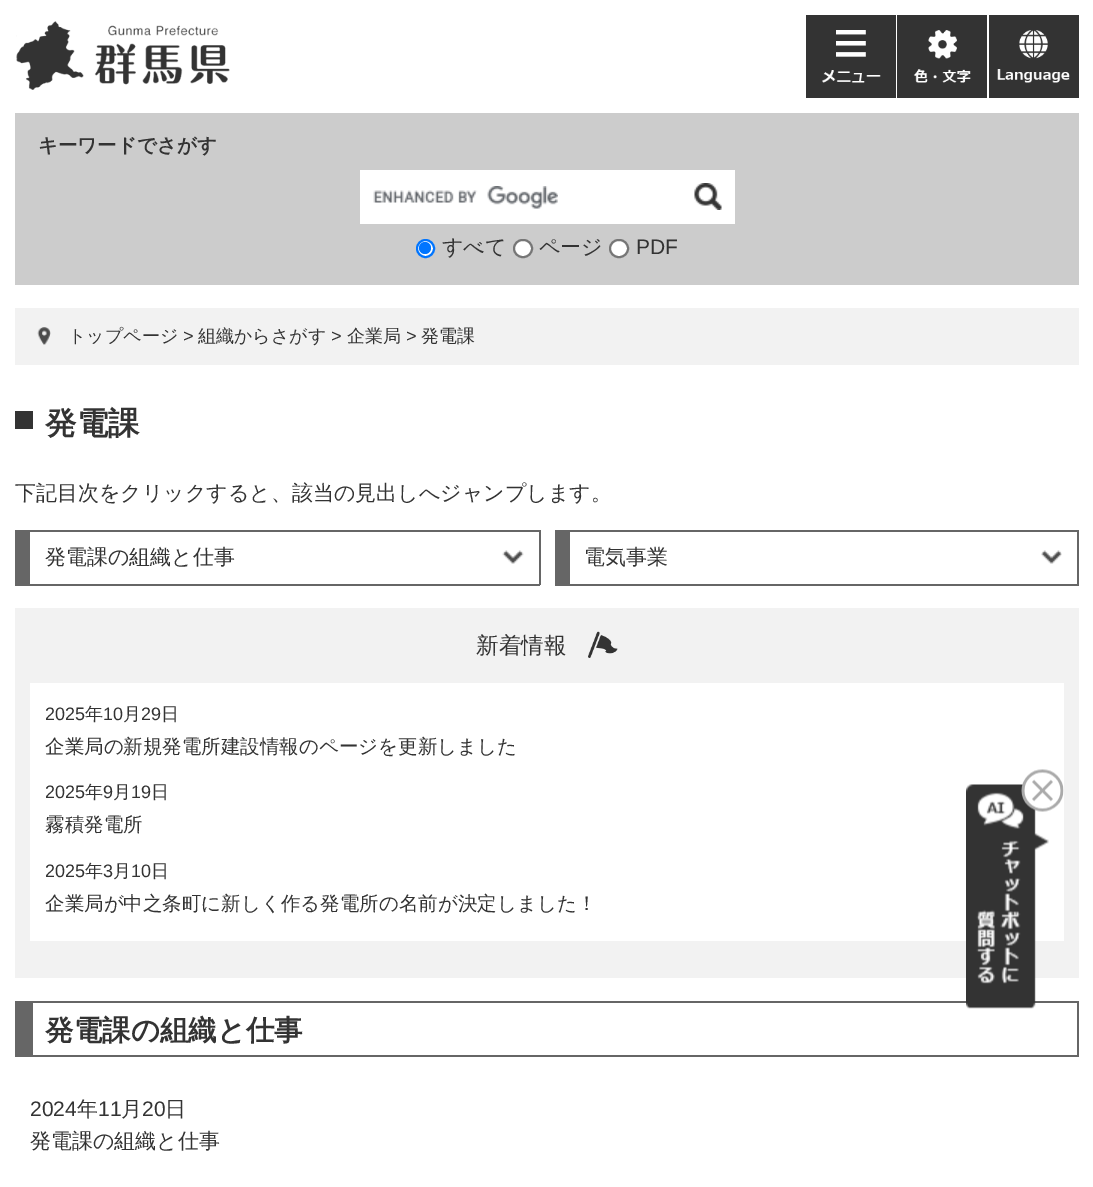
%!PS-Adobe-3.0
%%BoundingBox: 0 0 1093 1187
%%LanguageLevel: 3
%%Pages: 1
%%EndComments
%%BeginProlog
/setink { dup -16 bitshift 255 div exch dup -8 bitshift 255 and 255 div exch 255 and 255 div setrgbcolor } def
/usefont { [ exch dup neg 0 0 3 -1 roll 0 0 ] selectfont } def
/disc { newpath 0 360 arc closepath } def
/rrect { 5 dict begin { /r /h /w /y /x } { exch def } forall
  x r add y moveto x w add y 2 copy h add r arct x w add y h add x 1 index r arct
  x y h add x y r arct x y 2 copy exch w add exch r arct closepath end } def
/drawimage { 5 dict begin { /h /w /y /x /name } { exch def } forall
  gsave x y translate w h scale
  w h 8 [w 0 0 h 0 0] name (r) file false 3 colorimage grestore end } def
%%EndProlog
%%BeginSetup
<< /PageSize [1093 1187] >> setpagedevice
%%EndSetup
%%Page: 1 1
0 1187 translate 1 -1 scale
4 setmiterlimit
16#FFFFFF setink
0 0 1093 1187 rectfill
(img1.raw) 16 21 214 69 drawimage
16#333333 setink
806 15 90 83 rectfill
(img2.raw) 822 30 59 53 drawimage
897 15 90 83 rectfill
(img3.raw) 913 30 58 53 drawimage
989 15 90 83 rectfill
(img4.raw) 997 30 73 53 drawimage
16#CCCCCC setink
15 113 1064 172 rectfill
/WenQuanYiZenHei-Bold 19.5 usefont
16#333333 setink
38 152 moveto (キーワードでさがす) show
16#FFFFFF setink
360 170 375 54 rectfill
(img5.raw) 373 186 185 23 drawimage
(img6.raw) 694 183 28 27 drawimage
425.5 248.5 8.5 disc gsave fill grestore
16#0075FF setink
2 setlinewidth
stroke
425 248 6 disc fill
/WenQuanYiZenHei-Medium 21 usefont
16#333333 setink
442 254 moveto (すべて) show
16#FFFFFF setink
514 240 18 17 8.5 rrect gsave fill grestore
16#767676 setink
stroke
16#333333 setink
539 254 moveto (ページ) show
16#FFFFFF setink
610 240 18 17 8.5 rrect gsave fill grestore
16#767676 setink
stroke
/LiberationSans-Regular 21 usefont
16#333333 setink
636 254 moveto (PDF) show
16#F2F2F2 setink
15 308 1064 57 rectfill
(img7.raw) 37 327 14 18 drawimage
/WenQuanYiZenHei-Medium 18 usefont
16#333333 setink
68 342 moveto (トップページ) show
/LiberationSans-Regular 18 usefont
183 342 moveto (>) show
/WenQuanYiZenHei-Medium 18 usefont
198 342 moveto (組織からさがす) show
/LiberationSans-Regular 18 usefont
331 342 moveto (>) show
/WenQuanYiZenHei-Medium 18 usefont
347 342 moveto (企業局) show
/LiberationSans-Regular 18 usefont
406 342 moveto (>) show
/WenQuanYiZenHei-Medium 18 usefont
421 342 moveto (発電課) show
15 411 18 18 rectfill
/WenQuanYiZenHei-Bold 31.5 usefont
45 434 moveto (発電課) show
/WenQuanYiZenHei-Medium 21 usefont
15 500 moveto (下記目次をクリックすると、該当の見出しへジャンプします。) show
[
    [30 530 510 2 16#666666]
    [539 530 2 55 16#666666]
    [15 584 525 2 16#666666]
    [15 530 15 54 16#666666]
] { aload pop setink rectfill } forall
(img8.raw) 502 550 22 14 drawimage
16#333333 setink
45 564 moveto (発電課の組織と仕事) show
[
    [570 530 509 2 16#666666]
    [1077 530 2 55 16#666666]
    [555 584 524 2 16#666666]
    [555 530 15 54 16#666666]
] { aload pop setink rectfill } forall
(img9.raw) 1041 550 21 14 drawimage
16#333333 setink
584 564 moveto (電気事業) show
16#F2F2F2 setink
15 608 1064 370 rectfill
(img10.raw) 588 631 30 27 drawimage
/WenQuanYiZenHei-Medium 22.5 usefont
16#333333 setink
476 653 moveto (新着情報) show
16#FFFFFF setink
30 683 1034 258 rectfill
/LiberationSans-Regular 18 usefont
16#333333 setink
45 720 moveto (2025) show
/WenQuanYiZenHei-Medium 18 usefont
85 720 moveto (年) show
/LiberationSans-Regular 18 usefont
103 720 moveto (10) show
/WenQuanYiZenHei-Medium 18 usefont
123 720 moveto (月) show
/LiberationSans-Regular 18 usefont
141 720 moveto (29) show
/WenQuanYiZenHei-Medium 18 usefont
161 720 moveto (日) show
/WenQuanYiZenHei-Medium 19.5 usefont
45 753 moveto (企業局の新規発電所建設情報のページを更新しました) show
/LiberationSans-Regular 18 usefont
45 798 moveto (2025) show
/WenQuanYiZenHei-Medium 18 usefont
85 798 moveto (年) show
/LiberationSans-Regular 18 usefont
103 798 moveto (9) show
/WenQuanYiZenHei-Medium 18 usefont
113 798 moveto (月) show
/LiberationSans-Regular 18 usefont
131 798 moveto (19) show
/WenQuanYiZenHei-Medium 18 usefont
151 798 moveto (日) show
/WenQuanYiZenHei-Medium 19.5 usefont
45 831 moveto (霧積発電所) show
/LiberationSans-Regular 18 usefont
45 877 moveto (2025) show
/WenQuanYiZenHei-Medium 18 usefont
85 877 moveto (年) show
/LiberationSans-Regular 18 usefont
103 877 moveto (3) show
/WenQuanYiZenHei-Medium 18 usefont
113 877 moveto (月) show
/LiberationSans-Regular 18 usefont
131 877 moveto (10) show
/WenQuanYiZenHei-Medium 18 usefont
151 877 moveto (日) show
/WenQuanYiZenHei-Medium 19.5 usefont
45 910 moveto (企業局が中之条町に新しく作る発電所の名前が決定しました！) show
[
    [33 1001 1046 2 16#666666]
    [1077 1001 2 55 16#666666]
    [15 1055 1064 2 16#666666]
    [15 1001 18 54 16#666666]
] { aload pop setink rectfill } forall
/WenQuanYiZenHei-Bold 28.5 usefont
16#333333 setink
45 1040 moveto (発電課の組織と仕事) show
/LiberationSans-Regular 21 usefont
30 1116 moveto (2024) show
/WenQuanYiZenHei-Medium 21 usefont
77 1116 moveto (年) show
/LiberationSans-Regular 21 usefont
98 1116 moveto (11) show
/WenQuanYiZenHei-Medium 21 usefont
121 1116 moveto (月) show
/LiberationSans-Regular 21 usefont
142 1116 moveto (20) show
/WenQuanYiZenHei-Medium 21 usefont
165 1116 moveto (日) show
30 1148 moveto (発電課の組織と仕事) show
(img11.raw) 966 769 98 240 drawimage
showpage
%%EOF
